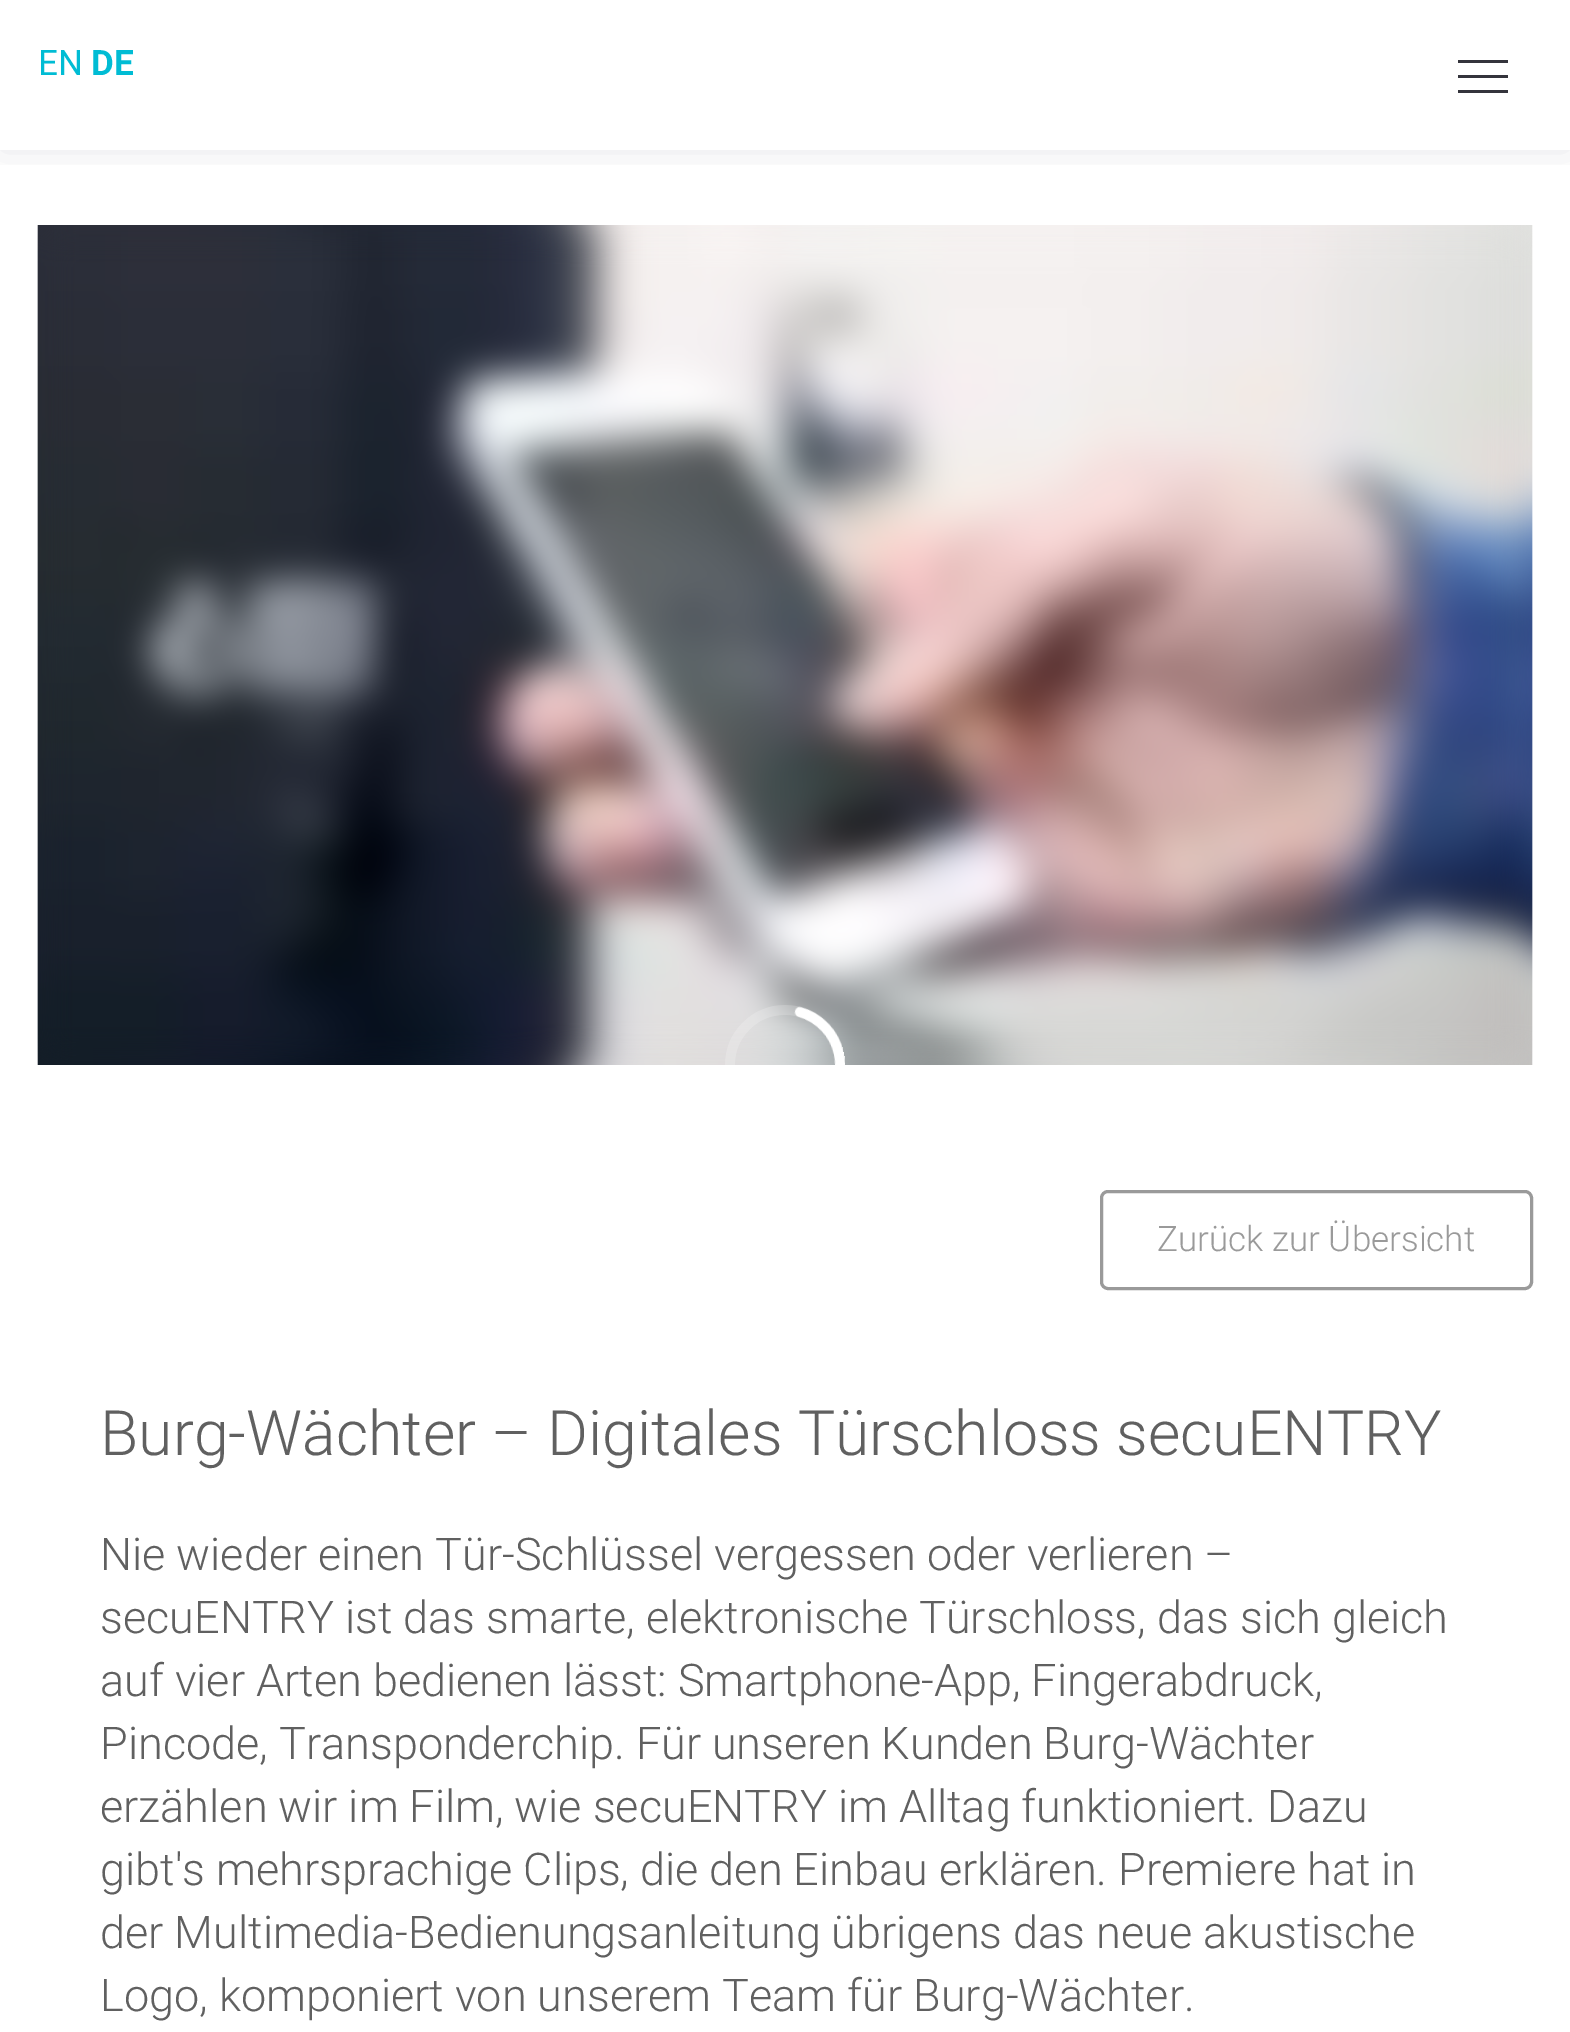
%!PS-Adobe-3.0
%%BoundingBox: 0 0 1570 2032
%%LanguageLevel: 3
%%Pages: 1
%%EndComments
%%BeginProlog
/setink { dup -16 bitshift 255 div exch dup -8 bitshift 255 and 255 div exch 255 and 255 div setrgbcolor } def
/usefont { [ exch dup neg 0 0 3 -1 roll 0 0 ] selectfont } def
/setalpha { dup .setfillconstantalpha .setstrokeconstantalpha } def
/rrect { 5 dict begin { /r /h /w /y /x } { exch def } forall
  x r add y moveto x w add y 2 copy h add r arct x w add y h add x 1 index r arct
  x y h add x y r arct x y 2 copy exch w add exch r arct closepath end } def
/softshadow { 12 dict begin { /a /b /q /h /w /y /x } { exch def } forall gsave /was 0 def
  9 -2 -9 { dup b mul 4 div /e exch def 1 sub .425 mul 2.718 exch exp 1 add a .99 .min exch div /now exch def
    1 1 now sub 1 was sub div sub setalpha /was now def
    w h .min e 2 mul add 0 gt { x e sub y e sub w e 2 mul add h e 2 mul add
      q e add b .6 mul add w h .min 2 div e add .min 0 .max rrect fill } if } for grestore end } def
/drawimage { 5 dict begin { /h /w /y /x /name } { exch def } forall
  gsave x y translate w h scale
  w h 8 [w 0 0 h 0 0] name (r) file false 3 colorimage grestore end } def
%%EndProlog
%%BeginSetup
<< /PageSize [1570 2032] /PageUsesTransparency true >> setpagedevice
%%EndSetup
%%Page: 1 1
0 .pushpdf14devicefilter
0 2032 translate 1 -1 scale
4 setmiterlimit
16#FFFFFF setink
0 0 1570 2032 rectfill
gsave
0 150 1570 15 rectclip
16#000032 setink
0 0 1570 150 0 19 0.09 softshadow
grestore
/Roboto-Regular 35 usefont
16#00BCD4 setink
38 75 moveto (EN) show
/Roboto-Bold 35 usefont
91 75 moveto (DE) show
[
    [1458 75 50 3 16#34343C]
    [1458 60 50 3 16#34343C]
    [1458 90 50 3 16#34343C]
] { aload pop setink rectfill } forall
(img1.raw) 37 225 1496 840 drawimage
16#9A9A9A setink
3 setlinewidth
1101.5 1191.5 430 97 6.5 rrect stroke
/Roboto-Light 35 usefont
1157 1251 moveto (Zurück zur Übersicht) show
/Roboto-Light 62.5 usefont
16#606060 setink
100 1455 moveto (Burg-Wächter – Digitales Türschloss secuENTRY) show
/Roboto-Light 45 usefont
[
    [(Nie wieder einen Tür-Schlüssel vergessen oder verlieren –) 100 1570]
    [(secuENTRY ist das smarte, elektronische Türschloss, das sich gleich) 100 1633]
    [(auf vier Arten bedienen lässt: Smartphone-App, Fingerabdruck,) 100 1696]
    [(Pincode, Transponderchip. Für unseren Kunden Burg-Wächter) 100 1759]
    [(erzählen wir im Film, wie secuENTRY im Alltag funktioniert. Dazu) 100 1822]
    [(gibt's mehrsprachige Clips, die den Einbau erklären. Premiere hat in) 100 1885]
    [(der Multimedia-Bedienungsanleitung übrigens das neue akustische) 100 1948]
    [(Logo, komponiert von unserem Team für Burg-Wächter.) 100 2011]
] { aload pop moveto show } forall
.poppdf14devicefilter showpage
%%EOF
